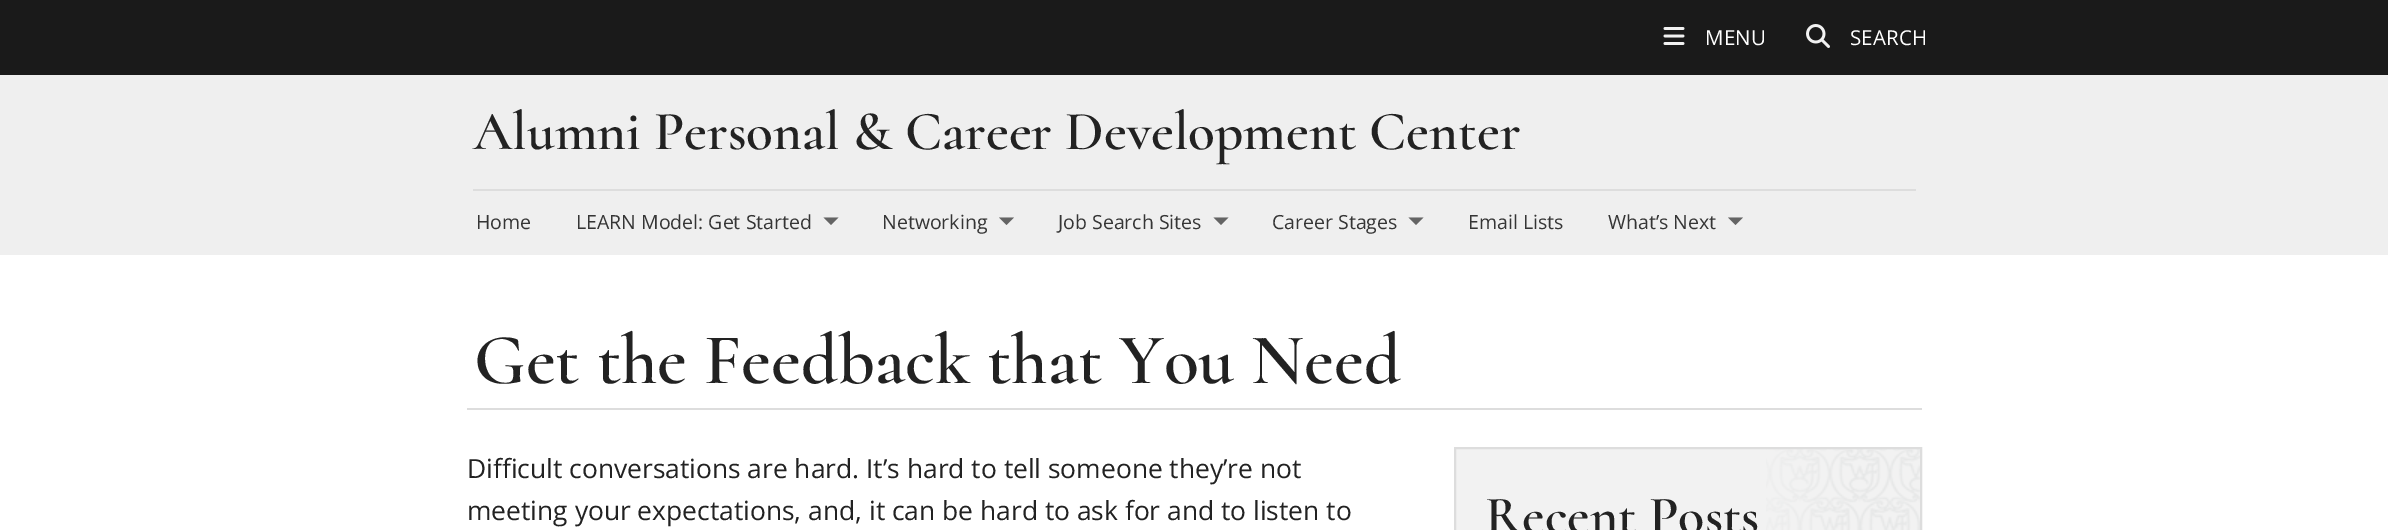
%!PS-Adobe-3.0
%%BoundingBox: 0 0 2388 530
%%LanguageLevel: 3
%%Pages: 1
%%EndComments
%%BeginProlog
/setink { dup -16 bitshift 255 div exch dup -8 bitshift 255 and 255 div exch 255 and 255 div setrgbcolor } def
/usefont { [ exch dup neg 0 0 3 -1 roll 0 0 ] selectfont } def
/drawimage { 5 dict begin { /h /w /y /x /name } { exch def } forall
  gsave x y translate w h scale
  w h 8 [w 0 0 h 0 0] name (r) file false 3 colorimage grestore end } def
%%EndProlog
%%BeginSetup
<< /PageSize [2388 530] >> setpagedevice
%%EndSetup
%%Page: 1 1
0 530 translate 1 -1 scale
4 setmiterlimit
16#FFFFFF setink
0 0 2388 530 rectfill
16#1A1A1A setink
0 0 2388 75 rectfill
(img1.raw) 1663 27 22 18 drawimage
/OpenSans-Regular 20.5 usefont
16#FFFFFF setink
1705 45 moveto 0.25 0 (MENU) ashow
(img2.raw) 1806 24 24 24 drawimage
1850 45 moveto 0.25 0 (SEARCH) ashow
16#EFEFEF setink
0 75 2388 180 rectfill
16#DDDDDD setink
473 189 1443 2 rectfill
/Cormorant-SemiBold 55.25 usefont
16#222222 setink
473 149 moveto (Alumni Personal & Career Development Center) show
/OpenSans-Regular 19.5 usefont
16#353535 setink
476 229 moveto (Home) show
576 229 moveto (LEARN Model: Get Started) show
16#646464 setink
823.5 217.5 moveto 838.5 217.5 lineto 831 225 lineto closepath fill
16#353535 setink
882 229 moveto (Networking) show
16#646464 setink
999 217.5 moveto 1014 217.5 lineto 1006.5 225 lineto closepath fill
16#353535 setink
1058 229 moveto (Job Search Sites) show
16#646464 setink
1213.5 217.5 moveto 1228.5 217.5 lineto 1221 225 lineto closepath fill
16#353535 setink
1272 229 moveto (Career Stages) show
16#646464 setink
1408.5 217.5 moveto 1423.5 217.5 lineto 1416 225 lineto closepath fill
16#353535 setink
1468 229 moveto (Email Lists) show
1608 229 moveto (What’s Next) show
16#646464 setink
1728 217.5 moveto 1743 217.5 lineto 1735.5 225 lineto closepath fill
16#DDDDDD setink
467 408 1455 2 rectfill
/Cormorant-SemiBold 72 usefont
16#222222 setink
474 383 moveto (Get the Feedback that You Need) show
/OpenSans-Regular 26.4 usefont
467 478 moveto (Difficult conversations are hard. It’s hard to tell someone they’re not) show
467 520 moveto (meeting your expectations, and, it can be hard to ask for and to listen to) show
16#F2F2F2 setink
1456 449 310 81 rectfill
(img3.raw) 1766 449 154 81 drawimage
16#DDDDDD setink
2 setlinewidth
1455 448 466 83 rectstroke
/Cormorant-SemiBold 54 usefont
16#222222 setink
1485 533 moveto (Recent Posts) show
showpage
%%EOF
